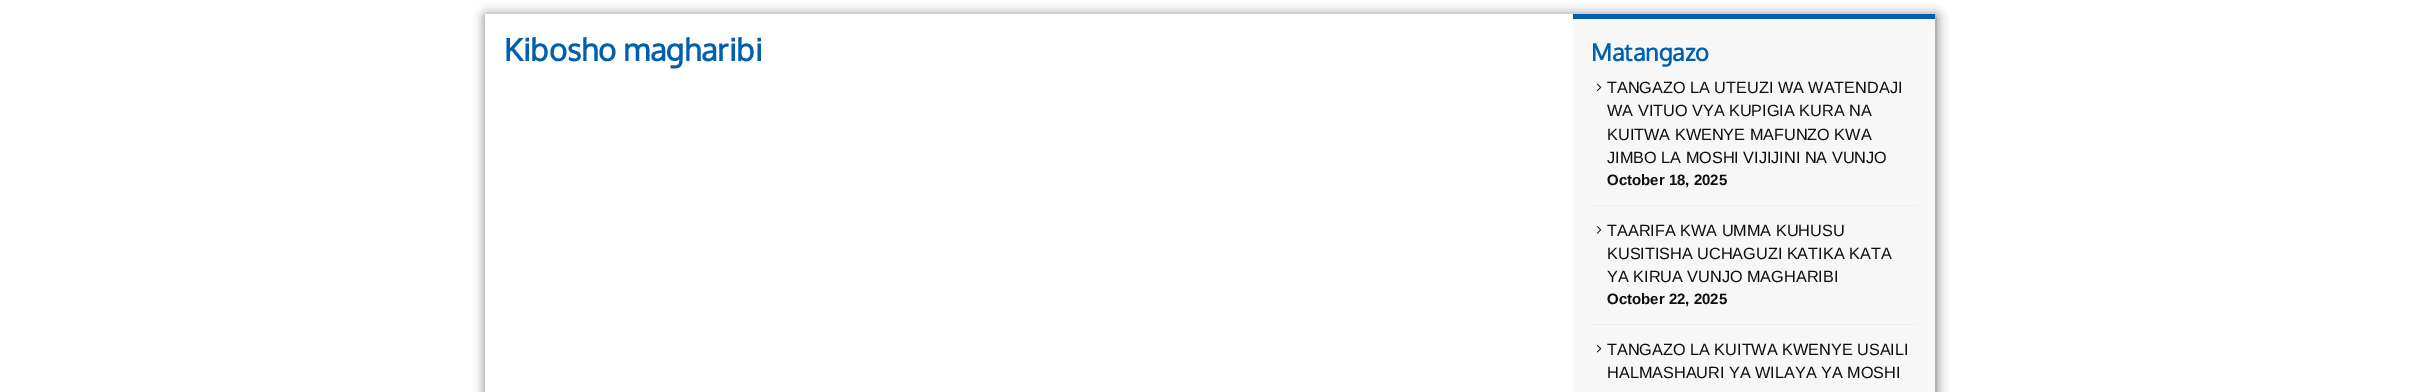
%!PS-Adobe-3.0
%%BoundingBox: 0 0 2420 392
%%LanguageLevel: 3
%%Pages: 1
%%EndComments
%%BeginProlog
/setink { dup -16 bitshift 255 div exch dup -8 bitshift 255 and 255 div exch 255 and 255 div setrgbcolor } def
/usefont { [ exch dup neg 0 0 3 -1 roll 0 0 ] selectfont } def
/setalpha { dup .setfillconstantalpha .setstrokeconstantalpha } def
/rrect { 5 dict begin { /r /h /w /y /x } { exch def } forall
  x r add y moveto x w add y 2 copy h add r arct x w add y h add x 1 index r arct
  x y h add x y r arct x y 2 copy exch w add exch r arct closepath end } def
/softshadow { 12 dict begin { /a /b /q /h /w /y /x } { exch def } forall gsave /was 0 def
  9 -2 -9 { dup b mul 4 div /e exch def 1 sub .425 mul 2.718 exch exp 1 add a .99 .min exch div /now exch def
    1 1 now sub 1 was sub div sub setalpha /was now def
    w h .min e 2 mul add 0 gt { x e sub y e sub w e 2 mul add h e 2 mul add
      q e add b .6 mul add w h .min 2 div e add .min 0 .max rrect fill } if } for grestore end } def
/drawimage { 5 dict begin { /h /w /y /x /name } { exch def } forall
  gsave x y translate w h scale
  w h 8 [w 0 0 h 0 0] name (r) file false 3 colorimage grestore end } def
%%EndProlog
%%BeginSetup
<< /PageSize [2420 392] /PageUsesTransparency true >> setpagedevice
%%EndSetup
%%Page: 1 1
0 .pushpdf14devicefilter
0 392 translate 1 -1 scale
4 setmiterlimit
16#FFFFFF setink
0 0 2420 392 rectfill
gsave
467 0 moveto 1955 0 lineto 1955 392 lineto 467 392 lineto closepath 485 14 moveto 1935 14 lineto 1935 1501 lineto 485 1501 lineto closepath eoclip newpath
16#323232 setink
486 16 1450 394 0 6 0.75 softshadow
grestore
/Oxygen-Bold 30.75 usefont
16#005FAF setink
504 61 moveto (Kibosho magharibi) show
16#F7F7F7 setink
1573 19 362 373 rectfill
16#005FAF setink
1573 14 362 5 rectfill
/Oxygen-Bold 23.5 usefont
1591 61 moveto (Matangazo) show
16#EEEEEE setink
1590 205 328 1 rectfill
(img1.raw) 1596 83 6 9 drawimage
/LiberationSans-Regular 16.25 usefont
16#0A0E0E setink
[
    [(TANGAZO LA UTEUZI WA WATENDAJI) 1607 93]
    [(WA VITUO VYA KUPIGIA KURA NA) 1607 116]
    [(KUITWA KWENYE MAFUNZO KWA) 1607 140]
    [(JIMBO LA MOSHI VIJIJINI NA VUNJO) 1607 163]
] { aload pop moveto show } forall
/LiberationSans-Bold 15 usefont
1607 185 moveto (October 18, 2025) show
16#EEEEEE setink
1590 324 328 1 rectfill
(img2.raw) 1596 226 6 8 drawimage
/LiberationSans-Regular 16.25 usefont
16#0A0E0E setink
[
    [(TAARIFA KWA UMMA KUHUSU) 1607 236]
    [(KUSITISHA UCHAGUZI KATIKA KATA) 1607 259]
    [(YA KIRUA VUNJO MAGHARIBI) 1607 282]
] { aload pop moveto show } forall
/LiberationSans-Bold 15 usefont
1607 304 moveto (October 22, 2025) show
(img3.raw) 1596 344 6 9 drawimage
/LiberationSans-Regular 16.25 usefont
1607 355 moveto (TANGAZO LA KUITWA KWENYE USAILI) show
1607 378 moveto (HALMASHAURI YA WILAYA YA MOSHI) show
.poppdf14devicefilter showpage
%%EOF
